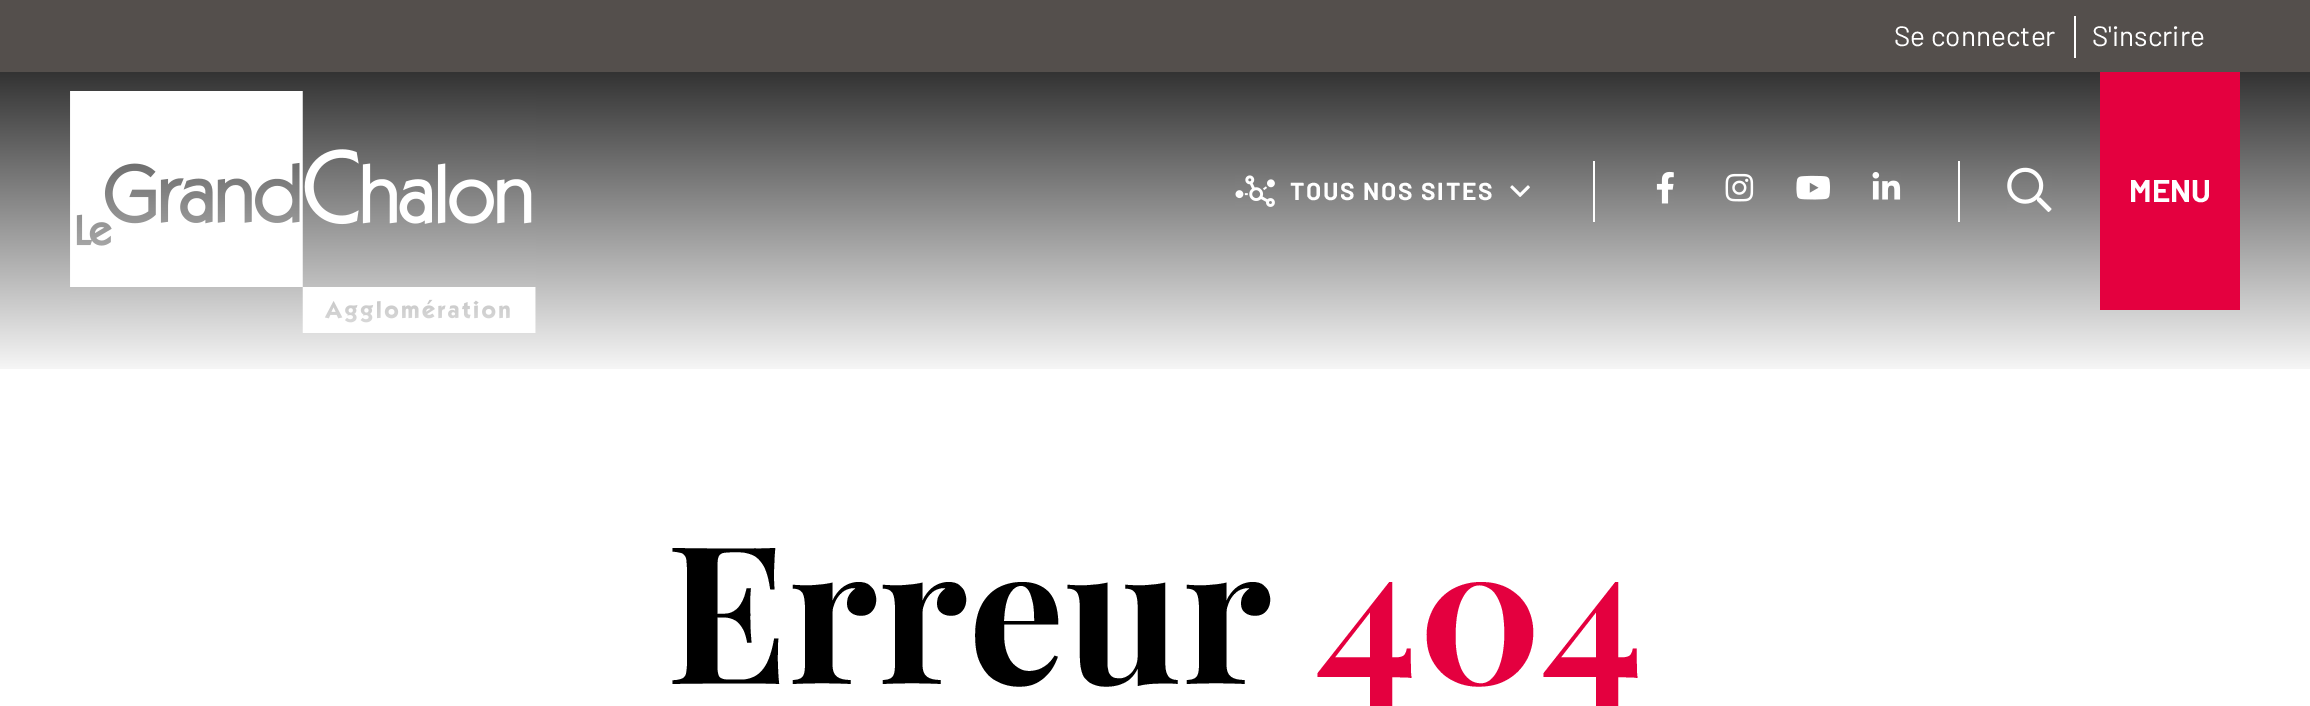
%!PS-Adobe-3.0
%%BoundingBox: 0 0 2310 706
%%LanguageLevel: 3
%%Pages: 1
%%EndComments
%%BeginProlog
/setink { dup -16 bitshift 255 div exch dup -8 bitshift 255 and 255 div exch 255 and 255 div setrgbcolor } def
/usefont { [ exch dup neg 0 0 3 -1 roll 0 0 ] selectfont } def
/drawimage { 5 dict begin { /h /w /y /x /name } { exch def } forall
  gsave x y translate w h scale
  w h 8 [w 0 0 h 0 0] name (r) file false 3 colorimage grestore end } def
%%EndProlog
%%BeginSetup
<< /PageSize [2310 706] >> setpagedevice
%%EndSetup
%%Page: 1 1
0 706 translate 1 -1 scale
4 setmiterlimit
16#FFFFFF setink
0 0 2310 706 rectfill
16#544F4C setink
0 0 2310 72 rectfill
/Barlow-Regular 28 usefont
16#FFFFFF setink
1894 46 moveto (Se connecter) show
2074 16 2 42 rectfill
2092 46 moveto (S'inscrire) show
gsave 0 72 moveto 2310 72 lineto 2310 369 lineto 0 369 lineto closepath clip newpath
<< /ShadingType 2 /ColorSpace /DeviceRGB /Coords [1155 369 1155 72] /Extend [true true] /Function << /FunctionType 2 /Domain [0 1] /C0 [0.965 0.965 0.965] /C1 [0.2 0.2 0.2] /N 1 >> >> shfill grestore
(img1.raw) 70 91 466 242 drawimage
(img2.raw) 1235 175 40 32 drawimage
/Barlow-Bold 24.5 usefont
1290 200 moveto 1.75 0 (TOUS NOS SITES) ashow
(img3.raw) 1510 185 20 12 drawimage
1958 161 2 61 rectfill
1593 161 2 61 rectfill
(img4.raw) 1656 171 18 33 drawimage
(img5.raw) 1725 173 29 29 drawimage
(img6.raw) 1796 175 34 25 drawimage
(img7.raw) 1872 172 29 28 drawimage
(img8.raw) 2007 167 45 45 drawimage
16#E4003F setink
2100 72 140 238 rectfill
/Barlow-Bold 31.5 usefont
16#FFFFFF setink
2129 202 moveto (MENU) show
/PlayfairDisplay-Bold 192.5 usefont
16#000000 setink
666 684 moveto (Erreur) show
16#E4003F setink
1316 684 moveto (404) show
showpage
%%EOF
